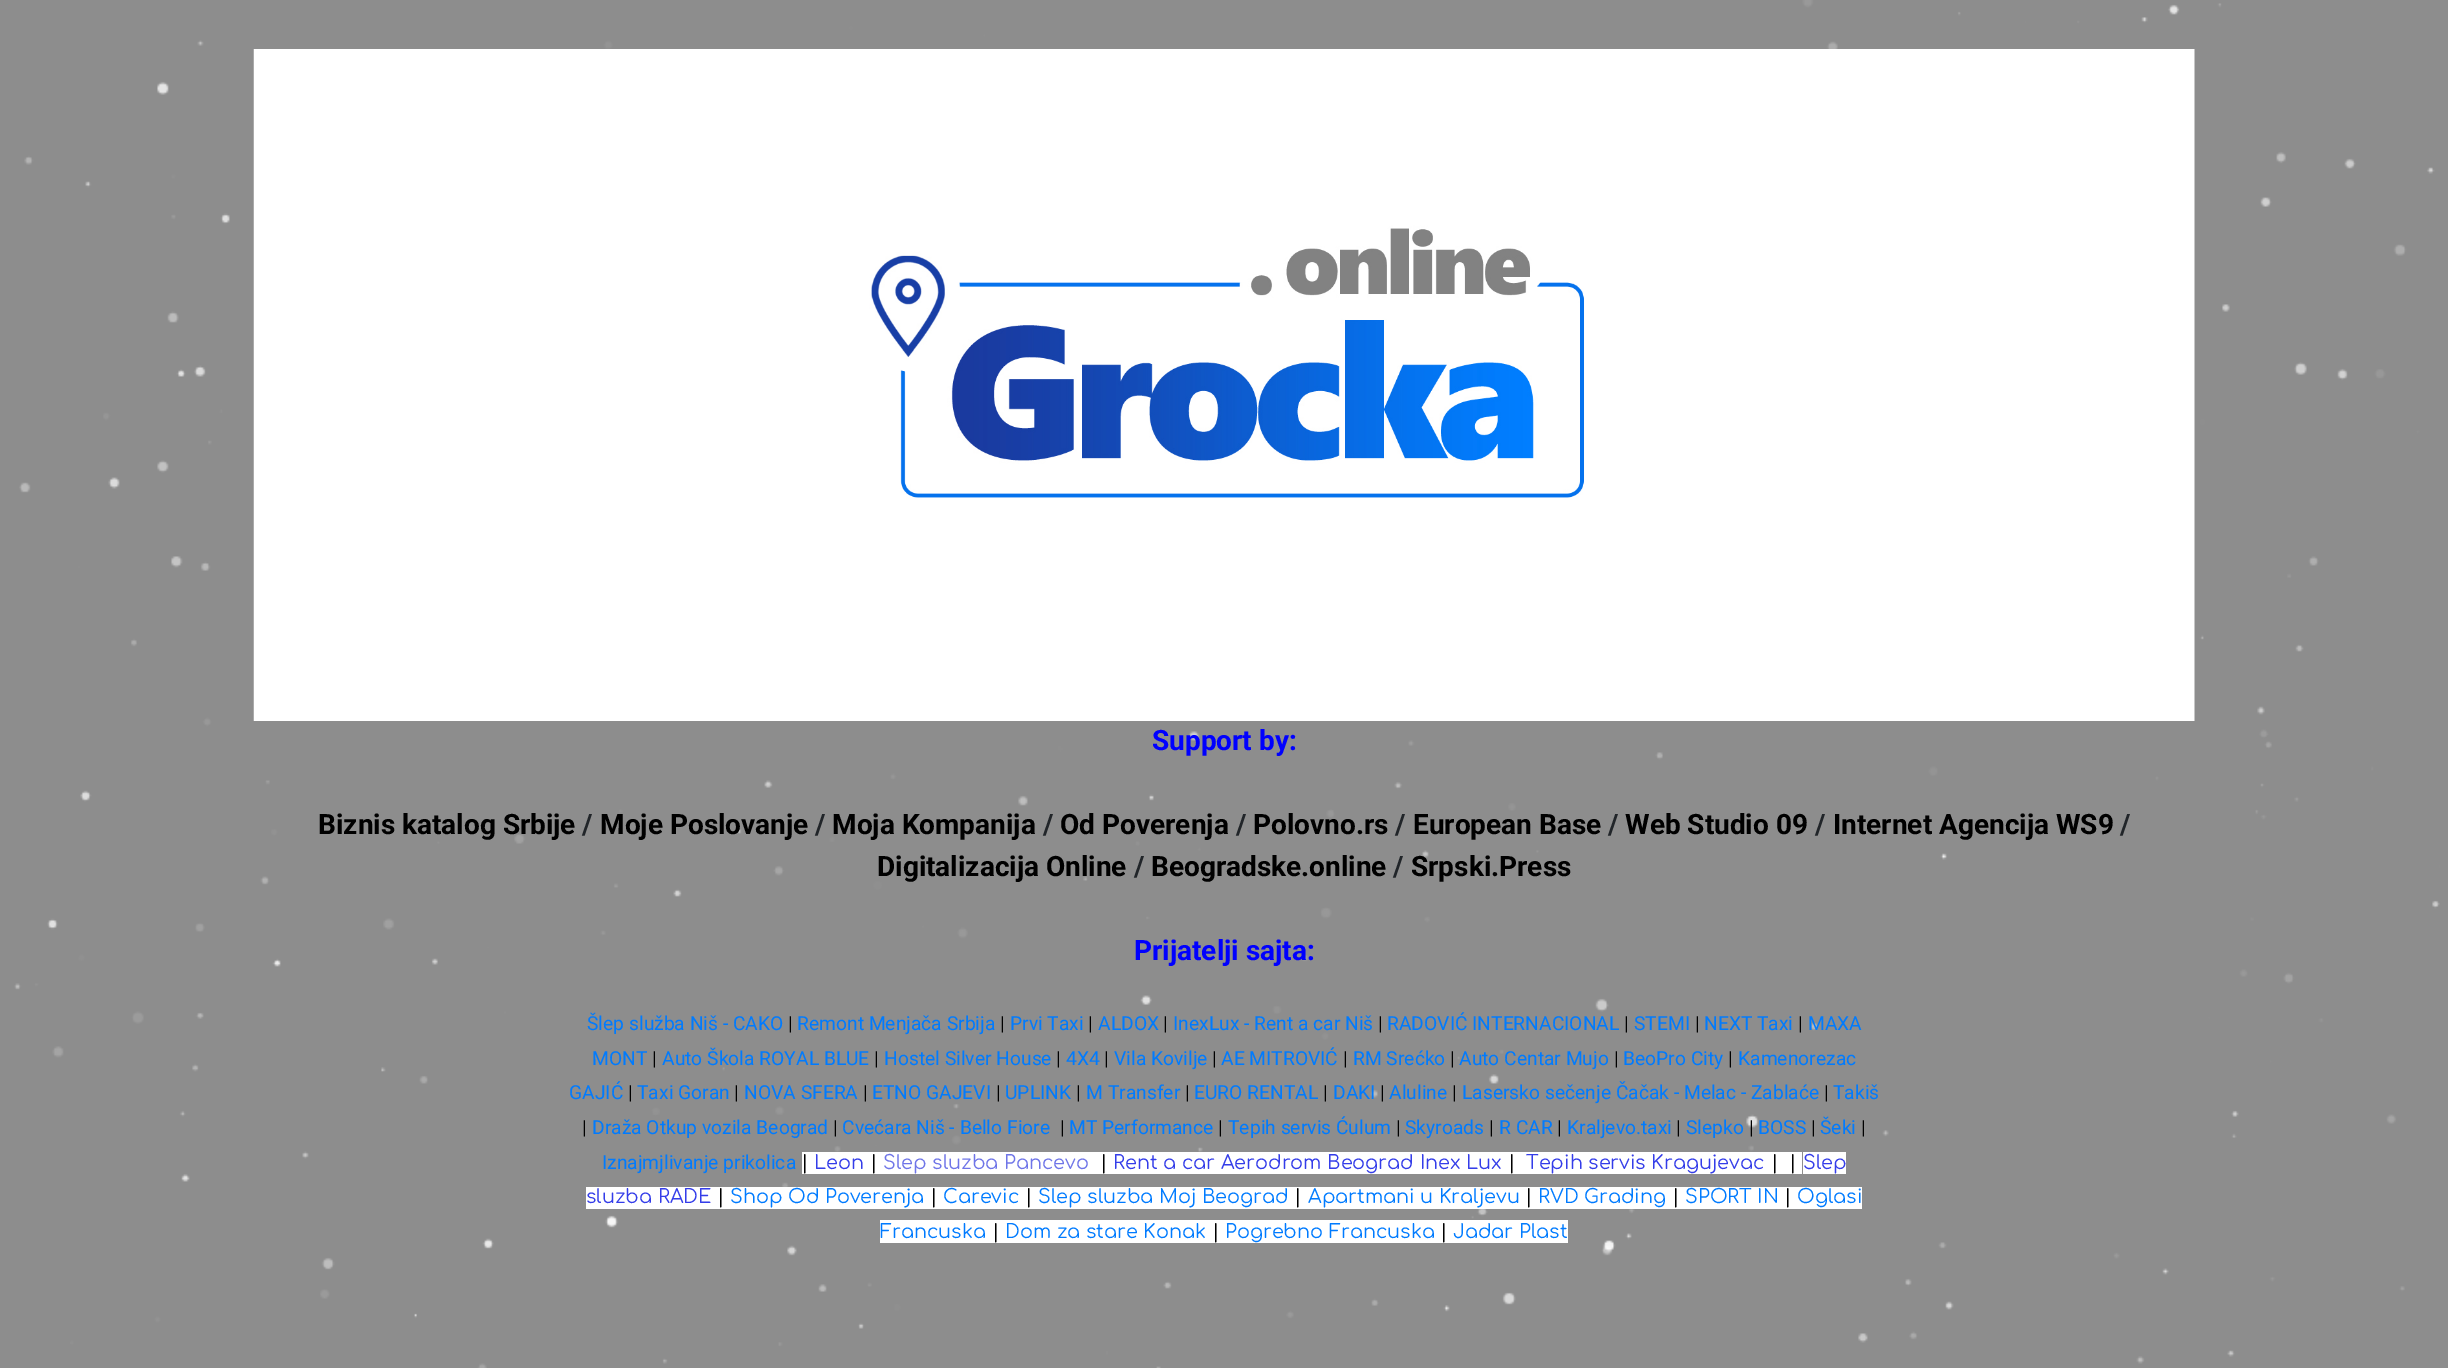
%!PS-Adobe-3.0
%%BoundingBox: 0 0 2448 1368
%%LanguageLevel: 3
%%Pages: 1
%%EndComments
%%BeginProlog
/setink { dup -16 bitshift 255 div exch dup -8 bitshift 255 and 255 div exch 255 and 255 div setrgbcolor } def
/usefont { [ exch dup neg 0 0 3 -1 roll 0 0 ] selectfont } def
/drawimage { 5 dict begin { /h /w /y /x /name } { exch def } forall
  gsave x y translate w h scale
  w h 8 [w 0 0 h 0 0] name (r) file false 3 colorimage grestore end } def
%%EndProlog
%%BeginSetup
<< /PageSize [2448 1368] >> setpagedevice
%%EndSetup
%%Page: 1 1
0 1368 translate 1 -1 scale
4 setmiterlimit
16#8D8D8D setink
0 0 2448 1368 rectfill
(img1.raw) 14 0 2426 1368 drawimage
(img2.raw) 253 49 1942 672 drawimage
/Roboto-Bold 28 usefont
16#0000FF setink
1152 750 moveto (Support by:) show
16#000000 setink
318 834 moveto (Biznis katalog Srbije) show
16#212529 setink
582 834 moveto (/) show
16#000000 setink
600 834 moveto (Moje Poslovanje) show
16#212529 setink
815 834 moveto (/) show
16#000000 setink
832 834 moveto (Moja Kompanija) show
16#212529 setink
1043 834 moveto (/) show
16#000000 setink
1060 834 moveto (Od Poverenja) show
16#212529 setink
1236 834 moveto (/) show
16#000000 setink
1253 834 moveto (Polovno.rs) show
16#212529 setink
1395 834 moveto (/) show
16#000000 setink
1413 834 moveto (European Base) show
16#212529 setink
1608 834 moveto (/) show
16#000000 setink
1625 834 moveto (Web Studio 09) show
16#212529 setink
1815 834 moveto (/) show
16#000000 setink
1833 834 moveto (Internet Agencija WS9) show
16#212529 setink
2120 834 moveto (/) show
16#000000 setink
877 876 moveto (Digitalizacija Online) show
16#212529 setink
1134 876 moveto (/) show
16#000000 setink
1151 876 moveto (Beogradske.online) show
16#212529 setink
1393 876 moveto (/) show
16#000000 setink
1411 876 moveto (Srpski.Press) show
16#0000FF setink
1134 960 moveto (Prijatelji sajta:) show
/Roboto-Regular 19.25 usefont
16#007BFF setink
587 1030 moveto (Šlep služba Niš - CAKO) show
16#000000 setink
788 1030 moveto (|) show
16#007BFF setink
797 1030 moveto (Remont Menjača Srbija) show
16#000000 setink
1000 1030 moveto (|) show
16#007BFF setink
1010 1030 moveto (Prvi Taxi) show
16#000000 setink
1088 1030 moveto (|) show
16#007BFF setink
1098 1030 moveto (ALDOX) show
16#000000 setink
1163 1030 moveto (|) show
16#007BFF setink
1173 1030 moveto (InexLux - Rent a car Niš) show
16#000000 setink
1378 1030 moveto (|) show
16#007BFF setink
1387 1030 moveto (RADOVIĆ INTERNACIONAL) show
16#000000 setink
1624 1030 moveto (|) show
16#007BFF setink
1634 1030 moveto (STEMI) show
16#000000 setink
1695 1030 moveto (|) show
16#007BFF setink
1704 1030 moveto (NEXT Taxi) show
16#000000 setink
1798 1030 moveto (|) show
16#007BFF setink
1808 1030 moveto (MAXA) show
592 1065 moveto (MONT) show
16#000000 setink
652 1065 moveto (|) show
16#007BFF setink
662 1065 moveto (Auto Škola ROYAL BLUE) show
16#000000 setink
874 1065 moveto (|) show
16#007BFF setink
884 1065 moveto (Hostel Silver House) show
16#000000 setink
1056 1065 moveto (|) show
16#007BFF setink
1066 1065 moveto (4X4) show
16#000000 setink
1104 1065 moveto (|) show
16#007BFF setink
1114 1065 moveto (Vila Kovilje) show
16#000000 setink
1212 1065 moveto (|) show
16#007BFF setink
1221 1065 moveto (AE MITROVIĆ) show
16#000000 setink
1343 1065 moveto (|) show
16#007BFF setink
1353 1065 moveto (RM Srećko) show
16#000000 setink
1450 1065 moveto (|) show
16#007BFF setink
1459 1065 moveto (Auto Centar Mujo) show
16#000000 setink
1614 1065 moveto (|) show
16#007BFF setink
1623 1065 moveto (BeoPro City) show
16#000000 setink
1728 1065 moveto (|) show
16#007BFF setink
1738 1065 moveto (Kamenorezac) show
569 1099 moveto (GAJIĆ) show
16#000000 setink
628 1099 moveto (|) show
16#007BFF setink
637 1099 moveto (Taxi Goran) show
16#000000 setink
734 1099 moveto (|) show
16#007BFF setink
744 1099 moveto (NOVA SFERA) show
16#000000 setink
863 1099 moveto (|) show
16#007BFF setink
872 1099 moveto (ETNO GAJEVI) show
16#000000 setink
996 1099 moveto (|) show
16#007BFF setink
1005 1099 moveto (UPLINK) show
16#000000 setink
1076 1099 moveto (|) show
16#007BFF setink
1086 1099 moveto (M Transfer) show
16#000000 setink
1185 1099 moveto (|) show
16#007BFF setink
1194 1099 moveto (EURO RENTAL) show
16#000000 setink
1323 1099 moveto (|) show
16#007BFF setink
1333 1099 moveto (DAKI) show
16#000000 setink
1380 1099 moveto (|) show
16#007BFF setink
1389 1099 moveto (Aluline) show
16#000000 setink
1452 1099 moveto (|) show
16#007BFF setink
1462 1099 moveto (Lasersko sečenje Čačak - Melac - Zablaće) show
16#000000 setink
1824 1099 moveto (|) show
16#007BFF setink
1833 1099 moveto (Takiš) show
16#000000 setink
582 1134 moveto (|) show
16#007BFF setink
592 1134 moveto (Draža Otkup vozila Beograd) show
16#000000 setink
833 1134 moveto (|) show
16#007BFF setink
842 1134 moveto (Cvećara Niš - Bello Fiore) show
16#000000 setink
1060 1134 moveto (|) show
16#007BFF setink
1069 1134 moveto (MT Performance) show
16#000000 setink
1218 1134 moveto (|) show
16#007BFF setink
1228 1134 moveto (Tepih servis Ćulum) show
16#000000 setink
1396 1134 moveto (|) show
16#007BFF setink
1405 1134 moveto (Skyroads) show
16#000000 setink
1489 1134 moveto (|) show
16#007BFF setink
1499 1134 moveto (R CAR) show
16#000000 setink
1557 1134 moveto (|) show
16#007BFF setink
1567 1134 moveto (Kraljevo.taxi) show
16#000000 setink
1676 1134 moveto (|) show
16#007BFF setink
1686 1134 moveto (Slepko) show
16#000000 setink
1749 1134 moveto (|) show
16#007BFF setink
1758 1134 moveto (BOSS) show
16#000000 setink
1811 1134 moveto (|) show
16#007BFF setink
1820 1134 moveto (Šeki) show
16#000000 setink
1861 1134 moveto (|) show
16#007BFF setink
602 1169 moveto (Iznajmjlivanje prikolica) show
16#FFFFFF setink
802 1152 1000 22 rectfill
/Comfortaa-Regular 19.25 usefont
16#000000 setink
801 1169 moveto (|) show
16#343DE9 setink
814 1169 moveto (Leon) show
16#000000 setink
870 1169 moveto (|) show
16#6F75E8 setink
883 1169 moveto (Slep sluzba Pancevo) show
16#000000 setink
1100 1169 moveto (|) show
16#343DE9 setink
1113 1169 moveto (Rent a car Aerodrom Beograd Inex Lux) show
16#000000 setink
1508 1169 moveto (|) show
16#343DE9 setink
1526 1169 moveto (Tepih servis Kragujevac) show
16#000000 setink
1771 1169 moveto (|) show
1789 1169 moveto (|) show
16#FFFFFF setink
1803 1152 43 22 rectfill
16#343DE9 setink
1803 1169 moveto (Slep) show
16#FFFFFF setink
586 1187 1276 22 rectfill
16#343DE9 setink
586 1203 moveto (sluzba RADE) show
16#000000 setink
717 1203 moveto (|) show
16#007BFF setink
730 1203 moveto (Shop Od Poverenja) show
16#000000 setink
930 1203 moveto (|) show
16#007BFF setink
943 1203 moveto (Carevic) show
16#000000 setink
1025 1203 moveto (|) show
16#007BFF setink
1038 1203 moveto (Slep sluzba Moj Beograd) show
16#000000 setink
1294 1203 moveto (|) show
16#007BFF setink
1308 1203 moveto (Apartmani u Kraljevu) show
16#000000 setink
1525 1203 moveto (|) show
16#007BFF setink
1538 1203 moveto (RVD Grading) show
16#000000 setink
1672 1203 moveto (|) show
16#007BFF setink
1685 1203 moveto (SPORT IN) show
16#000000 setink
1784 1203 moveto (|) show
16#007BFF setink
1797 1203 moveto (Oglasi) show
16#FFFFFF setink
880 1220 688 23 rectfill
16#007BFF setink
880 1238 moveto (Francuska) show
16#000000 setink
992 1238 moveto (|) show
16#007BFF setink
1005 1238 moveto (Dom za stare Konak) show
16#000000 setink
1212 1238 moveto (|) show
16#007BFF setink
1225 1238 moveto (Pogrebno Francuska) show
16#000000 setink
1440 1238 moveto (|) show
16#007BFF setink
1453 1238 moveto (Jadar Plast) show
showpage
%%EOF
